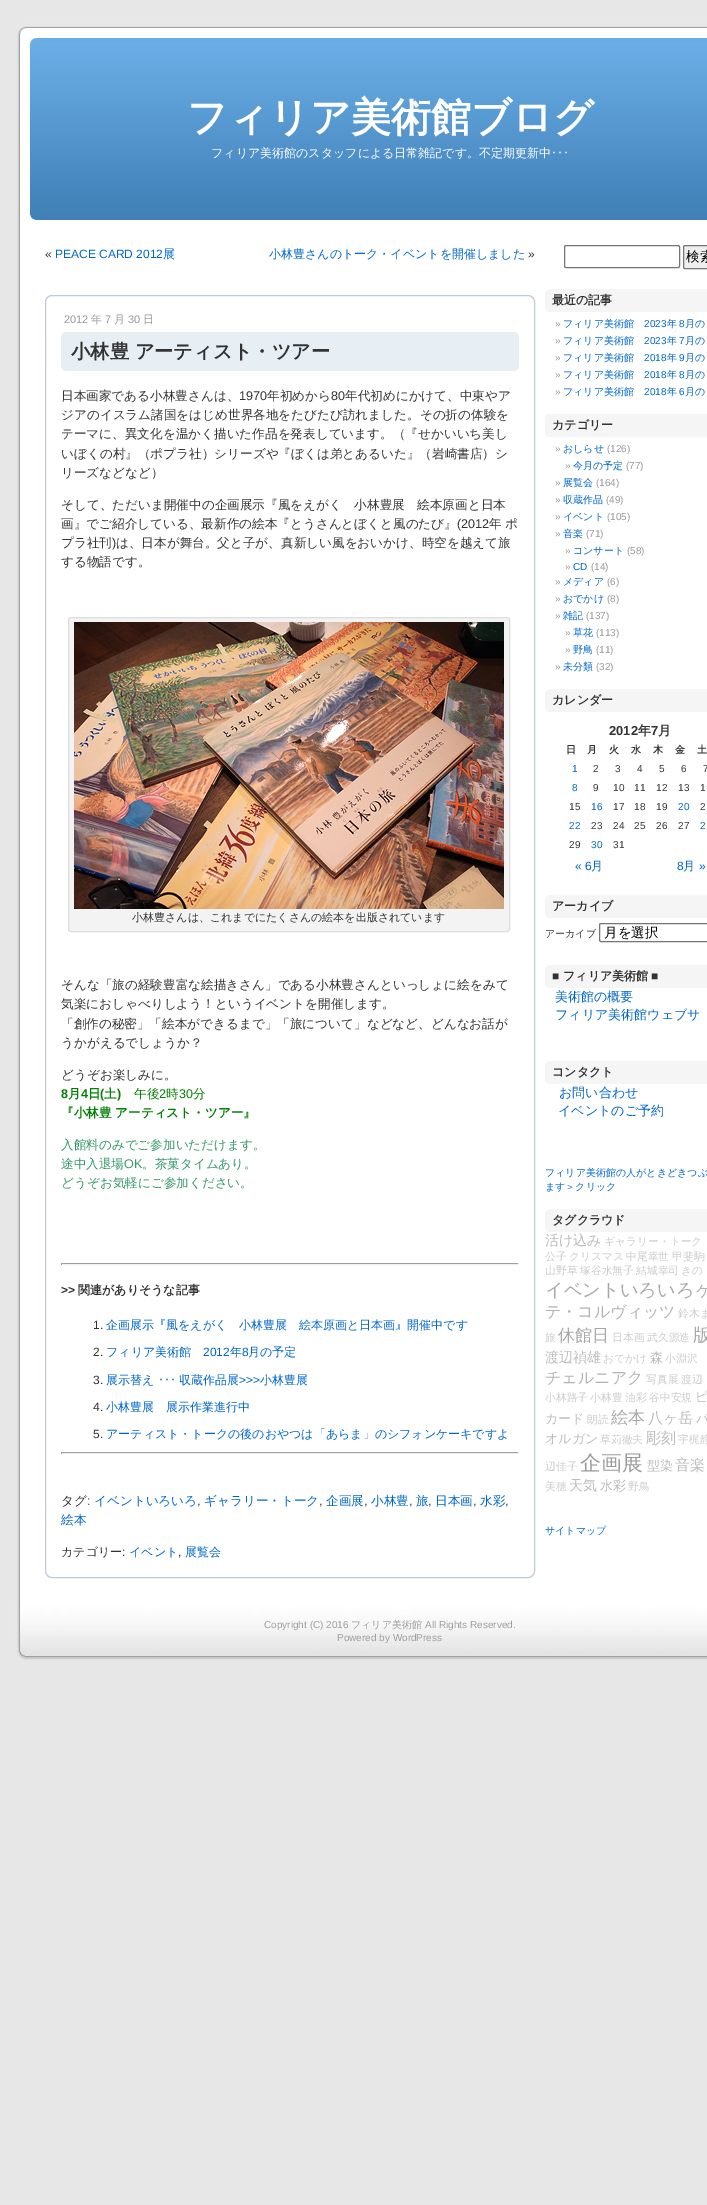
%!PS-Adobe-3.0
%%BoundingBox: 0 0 707 2205
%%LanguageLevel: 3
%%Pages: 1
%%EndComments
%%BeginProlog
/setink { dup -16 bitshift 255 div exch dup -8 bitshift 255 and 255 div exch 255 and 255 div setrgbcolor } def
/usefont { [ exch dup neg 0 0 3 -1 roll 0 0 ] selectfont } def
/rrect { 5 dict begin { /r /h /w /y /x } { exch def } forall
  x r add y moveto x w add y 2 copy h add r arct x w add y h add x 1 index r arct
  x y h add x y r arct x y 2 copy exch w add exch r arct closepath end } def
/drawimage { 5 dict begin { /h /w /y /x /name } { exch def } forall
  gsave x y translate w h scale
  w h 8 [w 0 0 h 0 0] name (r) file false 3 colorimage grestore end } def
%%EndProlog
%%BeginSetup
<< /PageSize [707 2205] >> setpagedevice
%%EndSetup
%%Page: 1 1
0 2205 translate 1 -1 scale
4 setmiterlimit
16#E7E7E7 setink
0 0 707 2205 rectfill
(img1.raw) 17 220 690 1378 drawimage
(img2.raw) 10 20 697 200 drawimage
/WenQuanYiZenHei-Bold 40 usefont
16#FFFFFF setink
187 131 moveto (フィリア美術館ブログ) show
/WenQuanYiZenHei-Medium 12 usefont
211 157 moveto (フィリア美術館のスタッフによる日常雑記です。不定期更新中) show
/IPAPGothic-Regular 12 usefont
551 157 moveto (･･･) show
/LiberationSans-Regular 12 usefont
16#333333 setink
45 258 moveto («) show
16#0066CC setink
55 258 moveto (PEACE CARD 2012) show
/WenQuanYiZenHei-Medium 12 usefont
163 258 moveto (展) show
269 258 moveto (小林豊さんのトーク・イベントを開催しました) show
/LiberationSans-Regular 12 usefont
16#333333 setink
528 258 moveto (») show
16#BDCCDC setink
45.5 295.5 489 1282 6.5 rrect stroke
/LiberationSans-Regular 11 usefont
16#999999 setink
64 323 moveto (2012) show
/WenQuanYiZenHei-Medium 11 usefont
91 323 moveto (年) show
/LiberationSans-Regular 11 usefont
105 323 moveto (7) show
/WenQuanYiZenHei-Medium 11 usefont
114 323 moveto (月) show
/LiberationSans-Regular 11 usefont
128 323 moveto (30) show
/WenQuanYiZenHei-Medium 11 usefont
143 323 moveto (日) show
16#E8EFF4 setink
61 332 458 39 5 rrect fill
/WenQuanYiZenHei-Bold 19.25 usefont
16#333333 setink
71 358 moveto (小林豊 アーティスト・ツアー) show
/WenQuanYiZenHei-Medium 12.6 usefont
61 400 moveto (日本画家である小林豊さんは、) show
/LiberationSans-Regular 12.6 usefont
239 400 moveto (1970) show
/WenQuanYiZenHei-Medium 12.6 usefont
267 400 moveto (年初めから) show
/LiberationSans-Regular 12.6 usefont
331 400 moveto (80) show
/WenQuanYiZenHei-Medium 12.6 usefont
[
    [(年代初めにかけて、中東やア) 345 400]
    [(ジアのイスラム諸国をはじめ世界各地をたびたび訪れました。その折の体験を) 61 419]
    [(テーマに、異文化を温かく描いた作品を発表しています。（『せかいいち美し) 61 438]
    [(いぼくの村』（ポプラ社）シリーズや『ぼくは弟とあるいた』（岩崎書店）シ) 61 458]
    [(リーズなどなど）) 61 477]
    [(そして、ただいま開催中の企画展示『風をえがく　小林豊展　絵本原画と日本) 61 509]
    [(画』でご紹介している、最新作の絵本『とうさんとぼくと風のたび』) 61 528]
] { aload pop moveto show } forall
/LiberationSans-Regular 12.6 usefont
457 528 moveto (\(2012) show
/WenQuanYiZenHei-Medium 12.6 usefont
489 528 moveto (年 ポ) show
61 547 moveto (プラ社刊) show
/LiberationSans-Regular 12.6 usefont
112 547 moveto (\)) show
/WenQuanYiZenHei-Medium 12.6 usefont
116 547 moveto (は、日本が舞台。父と子が、真新しい風をおいかけ、時空を越えて旅) show
61 566 moveto (する物語です。) show
16#F3F3F3 setink
68.5 617.5 441 314 2.5 rrect gsave fill grestore
16#DDDDDD setink
stroke
(img3.raw) 74 622 430 287 drawimage
/WenQuanYiZenHei-Medium 11 usefont
16#333333 setink
132 921 moveto (小林豊さんは、これまでにたくさんの絵本を出版されています) show
/WenQuanYiZenHei-Medium 12.6 usefont
[
    [(そんな「旅の経験豊富な絵描きさん」である小林豊さんといっしょに絵をみて) 61 989]
    [(気楽におしゃべりしよう！というイベントを開催します。) 61 1008]
    [(「創作の秘密」「絵本ができるまで」「旅について」などなど、どんなお話が) 61 1028]
    [(うかがえるでしょうか？) 61 1047]
    [(どうぞお楽しみに。) 61 1079]
] { aload pop moveto show } forall
/LiberationSans-Bold 12.6 usefont
16#008000 setink
61 1098 moveto (8) show
/WenQuanYiZenHei-Bold 12.6 usefont
68 1098 moveto (月) show
/LiberationSans-Bold 12.6 usefont
81 1098 moveto (4) show
/WenQuanYiZenHei-Bold 12.6 usefont
88 1098 moveto (日) show
/LiberationSans-Bold 12.6 usefont
100 1098 moveto (\() show
/WenQuanYiZenHei-Bold 12.6 usefont
104 1098 moveto (土) show
/LiberationSans-Bold 12.6 usefont
117 1098 moveto (\)) show
/WenQuanYiZenHei-Medium 12.6 usefont
134 1098 moveto (午後) show
/LiberationSans-Regular 12.6 usefont
159 1098 moveto (2) show
/WenQuanYiZenHei-Medium 12.6 usefont
166 1098 moveto (時) show
/LiberationSans-Regular 12.6 usefont
179 1098 moveto (30) show
/WenQuanYiZenHei-Medium 12.6 usefont
193 1098 moveto (分) show
/WenQuanYiZenHei-Bold 12.6 usefont
61 1117 moveto (『小林豊 アーティスト・ツアー』) show
/WenQuanYiZenHei-Medium 12.6 usefont
16#339966 setink
61 1149 moveto (入館料のみでご参加いただけます。) show
61 1168 moveto (途中入退場) show
/LiberationSans-Regular 12.6 usefont
124 1168 moveto (OK) show
/WenQuanYiZenHei-Medium 12.6 usefont
142 1168 moveto (。茶菓タイムあり。) show
61 1187 moveto (どうぞお気軽にご参加ください。) show
[
    [61 1263 458 1 16#9F9F9F]
    [518 1263 1 2 16#EEEEEE]
    [61 1264 458 1 16#EEEEEE]
    [61 1263 1 2 16#9F9F9F]
] { aload pop setink rectfill } forall
/LiberationSans-Bold 12 usefont
16#333333 setink
61 1294 moveto (>>) show
/WenQuanYiZenHei-Bold 12 usefont
78 1294 moveto (関連がありそうな記事) show
/LiberationSans-Regular 12 usefont
93 1329 moveto (1.) show
/WenQuanYiZenHei-Medium 12 usefont
16#0066CC setink
106 1329 moveto (企画展示『風をえがく　小林豊展　絵本原画と日本画』開催中です) show
/LiberationSans-Regular 12 usefont
16#333333 setink
93 1356 moveto (2.) show
/WenQuanYiZenHei-Medium 12 usefont
16#0066CC setink
106 1356 moveto (フィリア美術館) show
/LiberationSans-Regular 12 usefont
203 1356 moveto (2012) show
/WenQuanYiZenHei-Medium 12 usefont
230 1356 moveto (年) show
/LiberationSans-Regular 12 usefont
242 1356 moveto (8) show
/WenQuanYiZenHei-Medium 12 usefont
248 1356 moveto (月の予定) show
/LiberationSans-Regular 12 usefont
16#333333 setink
93 1384 moveto (3.) show
/WenQuanYiZenHei-Medium 12 usefont
16#0066CC setink
106 1384 moveto (展示替え) show
/IPAPGothic-Regular 12 usefont
158 1384 moveto (･･･) show
/WenQuanYiZenHei-Medium 12 usefont
179 1384 moveto (収蔵作品展) show
/LiberationSans-Regular 12 usefont
239 1384 moveto (>>>) show
/WenQuanYiZenHei-Medium 12 usefont
260 1384 moveto (小林豊展) show
/LiberationSans-Regular 12 usefont
16#333333 setink
93 1411 moveto (4.) show
/WenQuanYiZenHei-Medium 12 usefont
16#0066CC setink
106 1411 moveto (小林豊展　展示作業進行中) show
/LiberationSans-Regular 12 usefont
16#333333 setink
93 1438 moveto (5.) show
/WenQuanYiZenHei-Medium 12 usefont
16#0066CC setink
106 1438 moveto (アーティスト・トークの後のおやつは「あらま」のシフォンケーキですよ) show
[
    [61 1452 458 1 16#9F9F9F]
    [518 1452 1 2 16#EEEEEE]
    [61 1453 458 1 16#EEEEEE]
    [61 1452 1 2 16#9F9F9F]
] { aload pop setink rectfill } forall
/WenQuanYiZenHei-Medium 12.6 usefont
16#333333 setink
61 1505 moveto (タグ) show
/LiberationSans-Regular 12.6 usefont
87 1505 moveto (:) show
/WenQuanYiZenHei-Medium 12.6 usefont
16#0066CC setink
94 1505 moveto (イベントいろいろ) show
/LiberationSans-Regular 12.6 usefont
16#333333 setink
197 1505 moveto (,) show
/WenQuanYiZenHei-Medium 12.6 usefont
16#0066CC setink
204 1505 moveto (ギャラリー・トーク) show
/LiberationSans-Regular 12.6 usefont
16#333333 setink
319 1505 moveto (,) show
/WenQuanYiZenHei-Medium 12.6 usefont
16#0066CC setink
326 1505 moveto (企画展) show
/LiberationSans-Regular 12.6 usefont
16#333333 setink
364 1505 moveto (,) show
/WenQuanYiZenHei-Medium 12.6 usefont
16#0066CC setink
371 1505 moveto (小林豊) show
/LiberationSans-Regular 12.6 usefont
16#333333 setink
409 1505 moveto (,) show
/WenQuanYiZenHei-Medium 12.6 usefont
16#0066CC setink
416 1505 moveto (旅) show
/LiberationSans-Regular 12.6 usefont
16#333333 setink
428 1505 moveto (,) show
/WenQuanYiZenHei-Medium 12.6 usefont
16#0066CC setink
435 1505 moveto (日本画) show
/LiberationSans-Regular 12.6 usefont
16#333333 setink
473 1505 moveto (,) show
/WenQuanYiZenHei-Medium 12.6 usefont
16#0066CC setink
480 1505 moveto (水彩) show
/LiberationSans-Regular 12.6 usefont
16#333333 setink
505 1505 moveto (,) show
/WenQuanYiZenHei-Medium 12.6 usefont
16#0066CC setink
61 1524 moveto (絵本) show
/WenQuanYiZenHei-Medium 12 usefont
16#333333 setink
61 1556 moveto (カテゴリー) show
/LiberationSans-Regular 12 usefont
122 1556 moveto (:) show
/WenQuanYiZenHei-Medium 12 usefont
16#0066CC setink
129 1556 moveto (イベント) show
/LiberationSans-Regular 12 usefont
16#333333 setink
178 1556 moveto (,) show
/WenQuanYiZenHei-Medium 12 usefont
16#0066CC setink
185 1556 moveto (展覧会) show
16#767676 setink
564.5 245.5 115 22 1.5 rrect stroke
16#EFEFEF setink
683.5 245.5 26 23 1.5 rrect gsave fill grestore
16#767676 setink
stroke
/WenQuanYiZenHei-Medium 13.5 usefont
16#000000 setink
686 261 moveto (検索) show
16#F5F5F5 setink
545 289 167 23 5 rrect fill
/WenQuanYiZenHei-Bold 12 usefont
16#333333 setink
552 304 moveto (最近の記事) show
/LiberationSans-Regular 10 usefont
16#999999 setink
555 327 moveto (») show
/WenQuanYiZenHei-Medium 10 usefont
16#0066CC setink
563 327 moveto (フィリア美術館) show
/LiberationSans-Regular 10 usefont
644 327 moveto (2023) show
/WenQuanYiZenHei-Medium 10 usefont
667 327 moveto (年) show
/LiberationSans-Regular 10 usefont
679 327 moveto (8) show
/WenQuanYiZenHei-Medium 10 usefont
685 327 moveto (月の) show
/LiberationSans-Regular 10 usefont
16#999999 setink
555 344 moveto (») show
/WenQuanYiZenHei-Medium 10 usefont
16#0066CC setink
563 344 moveto (フィリア美術館) show
/LiberationSans-Regular 10 usefont
644 344 moveto (2023) show
/WenQuanYiZenHei-Medium 10 usefont
667 344 moveto (年) show
/LiberationSans-Regular 10 usefont
679 344 moveto (7) show
/WenQuanYiZenHei-Medium 10 usefont
685 344 moveto (月の) show
/LiberationSans-Regular 10 usefont
16#999999 setink
555 361 moveto (») show
/WenQuanYiZenHei-Medium 10 usefont
16#0066CC setink
563 361 moveto (フィリア美術館) show
/LiberationSans-Regular 10 usefont
644 361 moveto (2018) show
/WenQuanYiZenHei-Medium 10 usefont
667 361 moveto (年) show
/LiberationSans-Regular 10 usefont
679 361 moveto (9) show
/WenQuanYiZenHei-Medium 10 usefont
685 361 moveto (月の) show
/LiberationSans-Regular 10 usefont
16#999999 setink
555 378 moveto (») show
/WenQuanYiZenHei-Medium 10 usefont
16#0066CC setink
563 378 moveto (フィリア美術館) show
/LiberationSans-Regular 10 usefont
644 378 moveto (2018) show
/WenQuanYiZenHei-Medium 10 usefont
667 378 moveto (年) show
/LiberationSans-Regular 10 usefont
679 378 moveto (8) show
/WenQuanYiZenHei-Medium 10 usefont
685 378 moveto (月の) show
/LiberationSans-Regular 10 usefont
16#999999 setink
555 395 moveto (») show
/WenQuanYiZenHei-Medium 10 usefont
16#0066CC setink
563 395 moveto (フィリア美術館) show
/LiberationSans-Regular 10 usefont
644 395 moveto (2018) show
/WenQuanYiZenHei-Medium 10 usefont
667 395 moveto (年) show
/LiberationSans-Regular 10 usefont
679 395 moveto (6) show
/WenQuanYiZenHei-Medium 10 usefont
685 395 moveto (月の) show
16#F5F5F5 setink
545 414 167 23 5 rrect fill
/WenQuanYiZenHei-Bold 12 usefont
16#333333 setink
552 429 moveto (カテゴリー) show
/LiberationSans-Regular 10 usefont
16#999999 setink
555 452 moveto (») show
/WenQuanYiZenHei-Medium 10 usefont
16#0066CC setink
563 452 moveto (おしらせ) show
/LiberationSans-Regular 10 usefont
16#999999 setink
607 452 moveto (\(126\)) show
565 469 moveto (») show
/WenQuanYiZenHei-Medium 10 usefont
16#0066CC setink
573 469 moveto (今月の予定) show
/LiberationSans-Regular 10 usefont
16#999999 setink
626 469 moveto (\(77\)) show
555 486 moveto (») show
/WenQuanYiZenHei-Medium 10 usefont
16#0066CC setink
563 486 moveto (展覧会) show
/LiberationSans-Regular 10 usefont
16#999999 setink
596 486 moveto (\(164\)) show
555 503 moveto (») show
/WenQuanYiZenHei-Medium 10 usefont
16#0066CC setink
563 503 moveto (収蔵作品) show
/LiberationSans-Regular 10 usefont
16#999999 setink
606 503 moveto (\(49\)) show
555 520 moveto (») show
/WenQuanYiZenHei-Medium 10 usefont
16#0066CC setink
563 520 moveto (イベント) show
/LiberationSans-Regular 10 usefont
16#999999 setink
607 520 moveto (\(105\)) show
555 537 moveto (») show
/WenQuanYiZenHei-Medium 10 usefont
16#0066CC setink
563 537 moveto (音楽) show
/LiberationSans-Regular 10 usefont
16#999999 setink
586 537 moveto (\(71\)) show
565 554 moveto (») show
/WenQuanYiZenHei-Medium 10 usefont
16#0066CC setink
573 554 moveto (コンサート) show
/LiberationSans-Regular 10 usefont
16#999999 setink
627 554 moveto (\(58\)) show
565 570 moveto (») show
16#0066CC setink
573 570 moveto (CD) show
16#999999 setink
591 570 moveto (\(14\)) show
555 585 moveto (») show
/WenQuanYiZenHei-Medium 10 usefont
16#0066CC setink
563 585 moveto (メディア) show
/LiberationSans-Regular 10 usefont
16#999999 setink
607 585 moveto (\(6\)) show
555 602 moveto (») show
/WenQuanYiZenHei-Medium 10 usefont
16#0066CC setink
563 602 moveto (おでかけ) show
/LiberationSans-Regular 10 usefont
16#999999 setink
607 602 moveto (\(8\)) show
555 619 moveto (») show
/WenQuanYiZenHei-Medium 10 usefont
16#0066CC setink
563 619 moveto (雑記) show
/LiberationSans-Regular 10 usefont
16#999999 setink
586 619 moveto (\(137\)) show
565 636 moveto (») show
/WenQuanYiZenHei-Medium 10 usefont
16#0066CC setink
573 636 moveto (草花) show
/LiberationSans-Regular 10 usefont
16#999999 setink
596 636 moveto (\(113\)) show
565 653 moveto (») show
/WenQuanYiZenHei-Medium 10 usefont
16#0066CC setink
573 653 moveto (野鳥) show
/LiberationSans-Regular 10 usefont
16#999999 setink
596 653 moveto (\(11\)) show
555 670 moveto (») show
/WenQuanYiZenHei-Medium 10 usefont
16#0066CC setink
563 670 moveto (未分類) show
/LiberationSans-Regular 10 usefont
16#999999 setink
596 670 moveto (\(32\)) show
16#F5F5F5 setink
545 689 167 23 5 rrect fill
/WenQuanYiZenHei-Bold 12 usefont
16#333333 setink
552 704 moveto (カレンダー) show
/LiberationSans-Bold 13 usefont
609 735 moveto (2012) show
/WenQuanYiZenHei-Bold 13 usefont
638 735 moveto (年) show
/LiberationSans-Bold 13 usefont
651 735 moveto (7) show
/WenQuanYiZenHei-Bold 13 usefont
658 735 moveto (月) show
/WenQuanYiZenHei-Bold 10 usefont
[
    [(日) 566 753]
    [(月) 587 753]
    [(火) 609 753]
    [(水) 631 753]
    [(木) 653 753]
    [(金) 675 753]
    [(土) 697 753]
] { aload pop moveto show } forall
/LiberationSans-Regular 10 usefont
16#0066CC setink
572 772 moveto (1) show
16#333333 setink
[
    [(2) 593 772]
    [(3) 615 772]
    [(4) 637 772]
    [(5) 659 772]
    [(6) 681 772]
    [(7) 703 772]
] { aload pop moveto show } forall
16#0066CC setink
572 791 moveto (8) show
16#333333 setink
[
    [(9) 593 791]
    [(10) 613 791]
    [(11) 634 791]
    [(12) 656 791]
    [(13) 678 791]
    [(1) 700 791]
    [(15) 569 810]
] { aload pop moveto show } forall
16#0066CC setink
591 810 moveto (16) show
16#333333 setink
[
    [(17) 613 810]
    [(18) 634 810]
    [(19) 656 810]
] { aload pop moveto show } forall
16#0066CC setink
678 810 moveto (20) show
16#333333 setink
700 810 moveto (2) show
16#0066CC setink
569 829 moveto (22) show
16#333333 setink
[
    [(23) 591 829]
    [(24) 613 829]
    [(25) 634 829]
    [(26) 656 829]
    [(27) 678 829]
] { aload pop moveto show } forall
16#0066CC setink
700 829 moveto (2) show
16#333333 setink
569 848 moveto (29) show
16#0066CC setink
591 848 moveto (30) show
16#333333 setink
613 848 moveto (31) show
/LiberationSans-Regular 12 usefont
16#0066CC setink
575 870 moveto (« 6) show
/WenQuanYiZenHei-Medium 12 usefont
591 870 moveto (月) show
/LiberationSans-Regular 12 usefont
677 870 moveto (8) show
/WenQuanYiZenHei-Medium 12 usefont
683 870 moveto (月) show
/LiberationSans-Regular 12 usefont
699 870 moveto (») show
16#F5F5F5 setink
545 895 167 23 5 rrect fill
/WenQuanYiZenHei-Bold 12 usefont
16#333333 setink
552 910 moveto (アーカイブ) show
/WenQuanYiZenHei-Medium 10 usefont
545 937 moveto (アーカイブ) show
16#767676 setink
599.5 923.5 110 18 1.5 rrect stroke
/WenQuanYiZenHei-Medium 13.5 usefont
16#000000 setink
604 937 moveto (月を選択) show
16#F5F5F5 setink
545 965 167 23 5 rrect fill
/LiberationSans-Bold 12 usefont
16#333333 setink
552 980 moveto (■) show
/WenQuanYiZenHei-Bold 12 usefont
563 980 moveto (フィリア美術館) show
/LiberationSans-Bold 12 usefont
651 980 moveto (■) show
/WenQuanYiZenHei-Medium 13 usefont
16#0066CC setink
555 1001 moveto (美術館の概要) show
555 1019 moveto (フィリア美術館ウェブサ) show
16#F5F5F5 setink
545 1061 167 23 5 rrect fill
/WenQuanYiZenHei-Bold 12 usefont
16#333333 setink
552 1076 moveto (コンタクト) show
/WenQuanYiZenHei-Medium 13 usefont
16#0066CC setink
559 1097 moveto (お問い合わせ) show
558 1115 moveto (イベントのご予約) show
/WenQuanYiZenHei-Medium 10 usefont
545 1176 moveto (フィリア美術館の人がときどきつぶ) show
545 1190 moveto (ます＞クリック) show
16#F5F5F5 setink
545 1209 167 23 5 rrect fill
/WenQuanYiZenHei-Bold 12 usefont
16#333333 setink
552 1224 moveto (タグクラウド) show
/WenQuanYiZenHei-Medium 14 usefont
16#BCBCBC setink
545 1245 moveto (活け込み) show
/WenQuanYiZenHei-Medium 10.75 usefont
16#CCCCCC setink
[
    [(ギャラリー・トーク) 604 1245]
    [(公子) 545 1260]
    [(クリスマス) 569 1260]
    [(中尾幸世) 626 1260]
    [(甲斐駒) 672 1260]
    [(山野草) 545 1274]
    [(塚谷水無子) 580 1274]
    [(結城幸司) 636 1274]
    [(きの) 681 1274]
] { aload pop moveto show } forall
/WenQuanYiZenHei-Medium 18.25 usefont
16#A8A8A8 setink
545 1296 moveto (イベントいろいろ) show
/WenQuanYiZenHei-Medium 16 usefont
16#B2B2B2 setink
696 1296 moveto (ケ) show
545 1317 moveto (テ・コルヴィッツ) show
/WenQuanYiZenHei-Medium 10.75 usefont
16#CCCCCC setink
678 1317 moveto (鈴木ま) show
545 1341 moveto (旅) show
/WenQuanYiZenHei-Medium 17 usefont
16#A8A8A8 setink
558 1341 moveto (休館日) show
/WenQuanYiZenHei-Medium 10.75 usefont
16#CCCCCC setink
612 1341 moveto (日本画) show
647 1341 moveto (武久源造) show
/WenQuanYiZenHei-Medium 18.25 usefont
16#A8A8A8 setink
693 1341 moveto (版) show
/WenQuanYiZenHei-Medium 14 usefont
16#BCBCBC setink
545 1362 moveto (渡辺禎雄) show
/WenQuanYiZenHei-Medium 10.75 usefont
16#CCCCCC setink
603 1362 moveto (おでかけ) show
/WenQuanYiZenHei-Medium 13 usefont
16#BCBCBC setink
650 1362 moveto (森) show
/WenQuanYiZenHei-Medium 10.75 usefont
16#CCCCCC setink
665 1362 moveto (小淵沢) show
/WenQuanYiZenHei-Medium 16 usefont
16#B2B2B2 setink
545 1383 moveto (チェルニアク) show
/WenQuanYiZenHei-Medium 10.75 usefont
16#CCCCCC setink
[
    [(写真展) 646 1383]
    [(渡辺) 681 1383]
    [(小林路子) 545 1401]
    [(小林豊) 590 1401]
    [(油彩) 625 1401]
    [(谷中安規) 649 1401]
] { aload pop moveto show } forall
/WenQuanYiZenHei-Medium 13 usefont
16#BCBCBC setink
695 1401 moveto (ピ) show
545 1423 moveto (カード) show
/WenQuanYiZenHei-Medium 10.75 usefont
16#CCCCCC setink
587 1423 moveto (朗読) show
/WenQuanYiZenHei-Medium 17 usefont
16#A8A8A8 setink
611 1423 moveto (絵本) show
/WenQuanYiZenHei-Medium 15 usefont
16#BCBCBC setink
648 1423 moveto (八ヶ岳) show
/WenQuanYiZenHei-Medium 13 usefont
696 1423 moveto (パ) show
545 1443 moveto (オルガン) show
/WenQuanYiZenHei-Medium 10.75 usefont
16#CCCCCC setink
600 1443 moveto (草苅徹夫) show
/WenQuanYiZenHei-Medium 15 usefont
16#BCBCBC setink
646 1443 moveto (彫刻) show
/WenQuanYiZenHei-Medium 10.75 usefont
16#CCCCCC setink
678 1443 moveto (宇梶静) show
545 1470 moveto (辺佳子) show
/WenQuanYiZenHei-Medium 21 usefont
16#999999 setink
580 1470 moveto (企画展) show
/WenQuanYiZenHei-Medium 13 usefont
16#BCBCBC setink
647 1470 moveto (型染) show
/WenQuanYiZenHei-Medium 15 usefont
675 1470 moveto (音楽) show
/WenQuanYiZenHei-Medium 10.75 usefont
16#CCCCCC setink
545 1490 moveto (美穂) show
/WenQuanYiZenHei-Medium 14 usefont
16#BCBCBC setink
569 1490 moveto (天気) show
/WenQuanYiZenHei-Medium 13 usefont
600 1490 moveto (水彩) show
/WenQuanYiZenHei-Medium 10.75 usefont
16#CCCCCC setink
628 1490 moveto (野鳥) show
/WenQuanYiZenHei-Medium 10 usefont
16#0066CC setink
545 1534 moveto (サイトマップ) show
(img4.raw) 10 1598 697 63 drawimage
/LiberationSans-Regular 10 usefont
16#9F9F9F setink
264 1628 moveto (Copyright \(C\) 2016) show
/WenQuanYiZenHei-Medium 10 usefont
351 1628 moveto (フィリア美術館) show
/LiberationSans-Regular 10 usefont
425 1628 moveto (All Rights Reserved.) show
337 1641 moveto (Powered by WordPress) show
showpage
%%EOF
